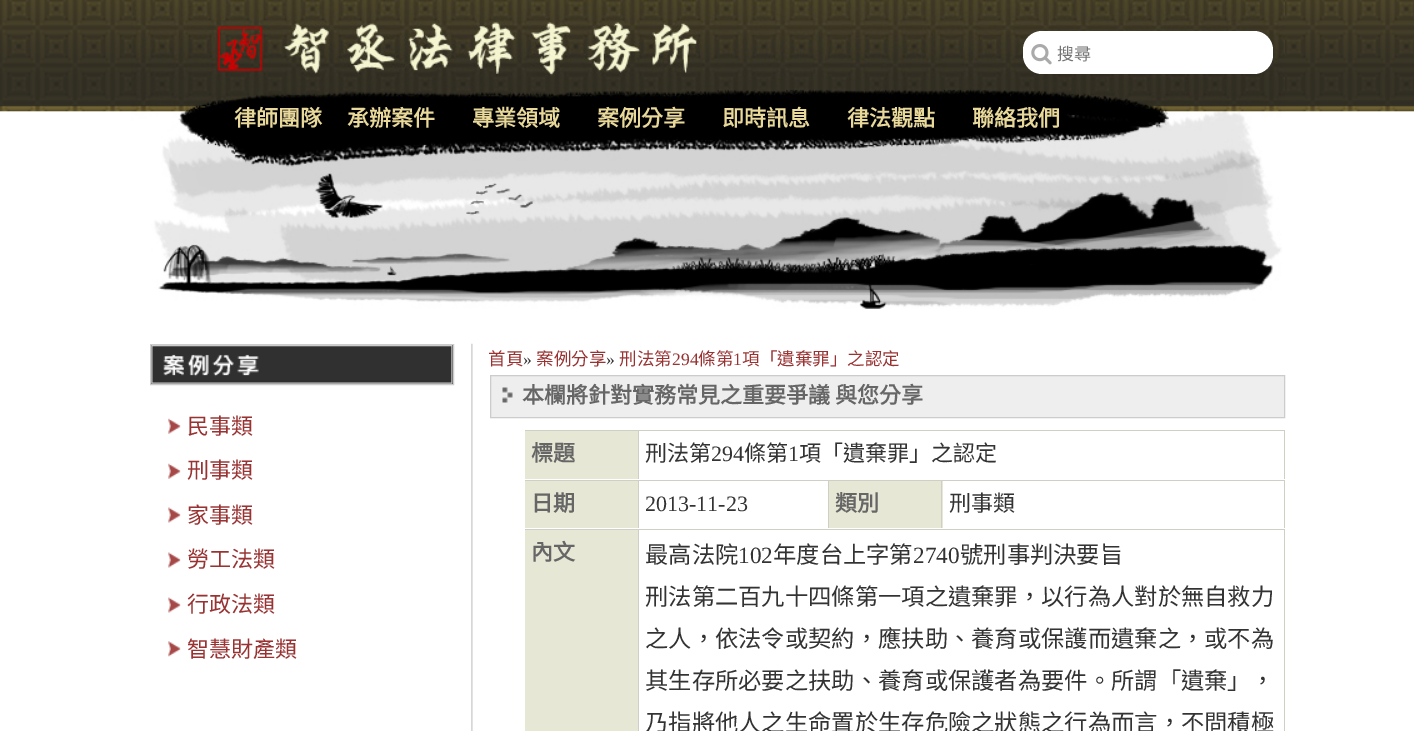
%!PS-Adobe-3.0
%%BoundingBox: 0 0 1414 731
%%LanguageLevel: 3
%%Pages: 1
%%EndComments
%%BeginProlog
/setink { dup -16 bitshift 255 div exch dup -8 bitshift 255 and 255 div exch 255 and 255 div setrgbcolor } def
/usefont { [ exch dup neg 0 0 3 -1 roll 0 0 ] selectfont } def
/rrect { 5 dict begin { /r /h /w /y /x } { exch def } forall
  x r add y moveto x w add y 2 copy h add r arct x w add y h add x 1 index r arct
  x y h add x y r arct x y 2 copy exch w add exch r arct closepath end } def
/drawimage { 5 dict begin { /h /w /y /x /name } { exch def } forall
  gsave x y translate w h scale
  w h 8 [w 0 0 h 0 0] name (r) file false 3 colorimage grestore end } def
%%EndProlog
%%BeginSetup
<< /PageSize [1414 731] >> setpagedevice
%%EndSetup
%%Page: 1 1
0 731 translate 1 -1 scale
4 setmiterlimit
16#FFFFFF setink
0 0 1414 731 rectfill
(img1.raw) 0 0 1414 112 drawimage
(img2.raw) 131 0 1154 309 drawimage
(img3.raw) 150 0 1135 76 drawimage
1023 31 250 43 19 rrect fill
(img4.raw) 1031 44 21 21 drawimage
/NotoSansCJKTC-Regular 17 usefont
16#757575 setink
1057 60 moveto (搜尋) show
(img5.raw) 471 343 2 388 drawimage
/NotoSansCJKTC-Bold 22 usefont
16#E8D89A setink
[
    [(律師團隊) 234 126]
    [(承辦案件) 347 126]
    [(專業領域) 472 126]
    [(案例分享) 597 126]
    [(即時訊息) 722 126]
    [(律法觀點) 847 126]
    [(聯絡我們) 972 126]
] { aload pop moveto show } forall
(img6.raw) 168 418 13 16 drawimage
/NotoSansCJKTC-Regular 22 usefont
16#993333 setink
187 434 moveto (民事類) show
(img6.raw) 168 463 13 16 drawimage
187 478 moveto (刑事類) show
(img7.raw) 168 507 13 16 drawimage
187 523 moveto (家事類) show
(img7.raw) 168 552 13 16 drawimage
187 567 moveto (勞工法類) show
(img8.raw) 168 597 13 16 drawimage
187 612 moveto (行政法類) show
(img9.raw) 168 641 13 16 drawimage
187 657 moveto (智慧財產類) show
16#303030 setink
150.5 344.5 moveto 453.5 344.5 lineto 453.5 384.5 lineto 150.5 384.5 lineto closepath gsave fill grestore
16#CCCCCC setink
stroke
(img10.raw) 151 345 302 39 drawimage
/NotoSansCJKTC-Regular 17.5 usefont
16#993333 setink
488 365 moveto (首頁) show
/LiberationSerif-Regular 17.5 usefont
16#333333 setink
523 365 moveto (») show
/NotoSansCJKTC-Regular 17.5 usefont
16#993333 setink
536 365 moveto (案例分享) show
/LiberationSerif-Regular 17.5 usefont
16#333333 setink
606 365 moveto (») show
/NotoSansCJKTC-Regular 17.5 usefont
16#993333 setink
619 365 moveto (刑法第) show
/LiberationSerif-Regular 17.5 usefont
672 365 moveto (294) show
/NotoSansCJKTC-Regular 17.5 usefont
698 365 moveto (條第) show
/LiberationSerif-Regular 17.5 usefont
733 365 moveto (1) show
/NotoSansCJKTC-Regular 17.5 usefont
742 365 moveto (項「遺棄罪」之認定) show
16#EEEEEE setink
491 376 793 41 rectfill
(img11.raw) 502 387 11 16 drawimage
16#CCCCCC setink
490.5 375.5 794 42 rectstroke
/NotoSansCJKTC-Bold 22 usefont
16#666666 setink
522 403 moveto (本欄將針對實務常見之重要爭議) show
835 403 moveto (與您分享) show
[
    [525 431 113 48 16#E7E7D5]
    [525 430 760 1 16#CFCFC5]
    [638 430 1 50 16#CFCFC5]
    [638 479 1 1 16#FFFFFF]
] { aload pop setink rectfill } forall
16#666666 setink
531 461 moveto (標題) show
16#CFCFC5 setink
1284 430 1 50 rectfill
16#FFFFFF setink
1284 479 1 1 rectfill
/NotoSansCJKTC-Regular 22 usefont
16#333333 setink
645 461 moveto (刑法第) show
/LiberationSerif-Regular 22 usefont
711 461 moveto (294) show
/NotoSansCJKTC-Regular 22 usefont
744 461 moveto (條第) show
/LiberationSerif-Regular 22 usefont
788 461 moveto (1) show
/NotoSansCJKTC-Regular 22 usefont
799 461 moveto (項「遺棄罪」之認定) show
[
    [525 481 113 47 16#E7E7D5]
    [525 480 760 1 16#CFCFC5]
    [638 480 1 49 16#CFCFC5]
    [638 528 1 1 16#FFFFFF]
] { aload pop setink rectfill } forall
/NotoSansCJKTC-Bold 22 usefont
16#666666 setink
531 511 moveto (日期) show
16#CFCFC5 setink
828 480 1 49 rectfill
16#FFFFFF setink
828 528 1 1 rectfill
/LiberationSerif-Regular 22 usefont
16#333333 setink
645 511 moveto (2013-11-23) show
[
    [829 481 114 47 16#E7E7D5]
    [941 480 1 49 16#CFCFC5]
    [941 528 2 1 16#FFFFFF]
] { aload pop setink rectfill } forall
/NotoSansCJKTC-Bold 22 usefont
16#666666 setink
835 511 moveto (類別) show
16#CFCFC5 setink
1284 480 1 49 rectfill
16#FFFFFF setink
1284 528 1 1 rectfill
/NotoSansCJKTC-Regular 22 usefont
16#333333 setink
949 511 moveto (刑事類) show
[
    [525 530 113 201 16#E7E7D5]
    [525 529 760 1 16#CFCFC5]
    [638 529 1 202 16#CFCFC5]
] { aload pop setink rectfill } forall
/NotoSansCJKTC-Bold 22 usefont
16#666666 setink
531 560 moveto (內文) show
16#CFCFC5 setink
1284 529 1 202 rectfill
/NotoSansCJKTC-Regular 23.3 usefont
16#333333 setink
645 563 moveto (最高法院) show
/LiberationSerif-Regular 23.3 usefont
738 563 moveto (102) show
/NotoSansCJKTC-Regular 23.3 usefont
773 563 moveto (年度台上字第) show
/LiberationSerif-Regular 23.3 usefont
913 563 moveto (2740) show
/NotoSansCJKTC-Regular 23.3 usefont
[
    [(號刑事判決要旨) 960 563]
    [(刑法第二百九十四條第一項之遺棄罪，以行為人對於無自救力) 645 605]
    [(之人，依法令或契約，應扶助、養育或保護而遺棄之，或不為) 645 647]
    [(其生存所必要之扶助、養育或保護者為要件。所謂「遺棄」，) 645 689]
    [(乃指將他人之生命置於生存危險之狀態之行為而言，不問積極) 645 731]
] { aload pop moveto show } forall
showpage
%%EOF
